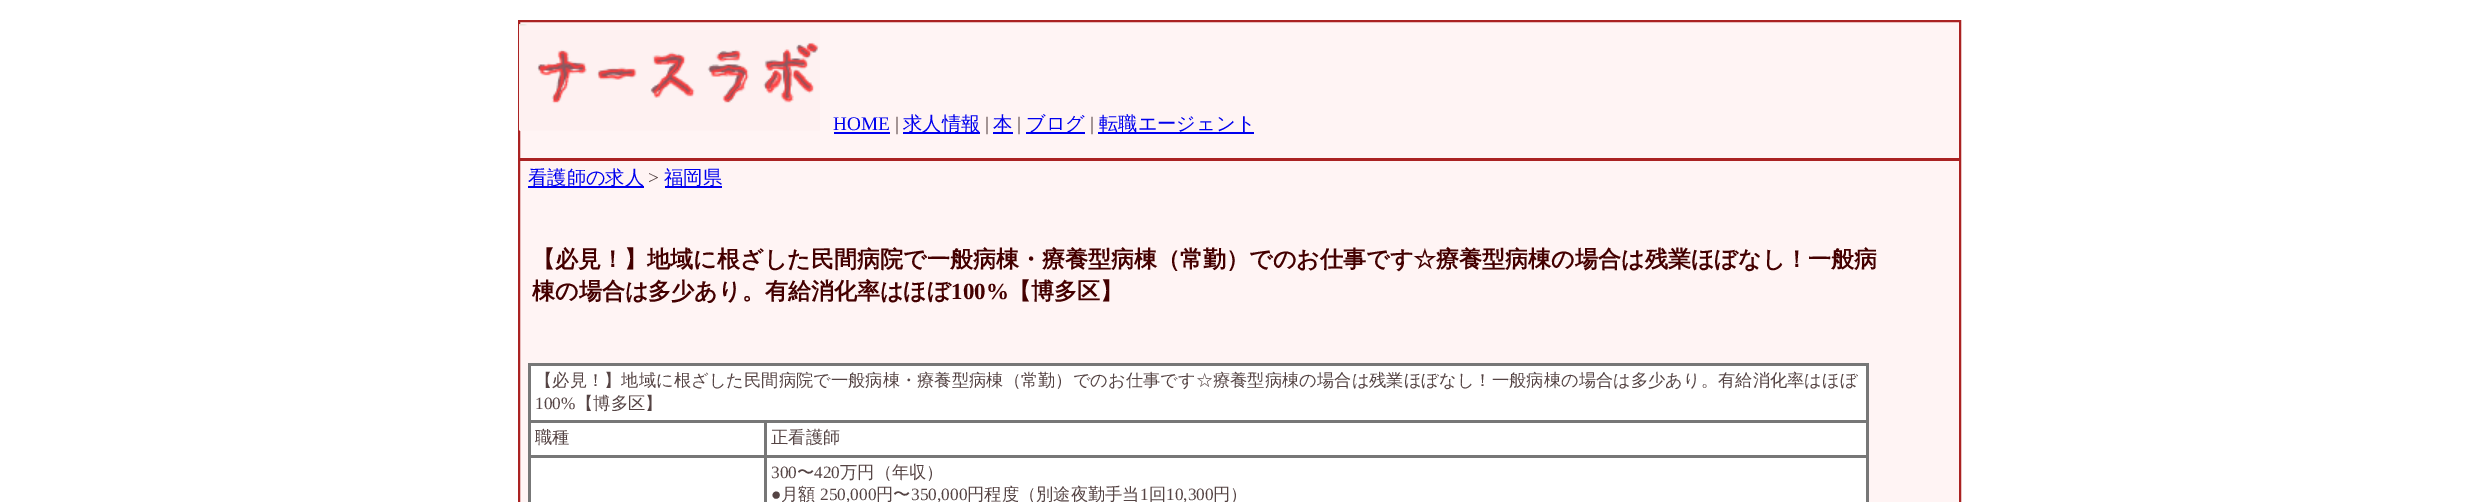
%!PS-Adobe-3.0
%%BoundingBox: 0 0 2476 502
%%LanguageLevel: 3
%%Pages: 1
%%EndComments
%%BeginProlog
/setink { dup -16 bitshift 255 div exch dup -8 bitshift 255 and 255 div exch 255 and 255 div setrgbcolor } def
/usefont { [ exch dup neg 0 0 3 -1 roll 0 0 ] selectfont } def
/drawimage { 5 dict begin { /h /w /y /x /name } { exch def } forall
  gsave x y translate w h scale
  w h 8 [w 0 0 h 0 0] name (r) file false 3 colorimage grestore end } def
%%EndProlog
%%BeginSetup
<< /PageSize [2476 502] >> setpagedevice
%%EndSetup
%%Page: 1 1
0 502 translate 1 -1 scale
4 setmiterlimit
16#FFFFFF setink
0 0 2476 502 rectfill
16#FFF4F4 setink
519 21 moveto 1960 21 lineto 1960 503 lineto 519 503 lineto closepath gsave fill grestore
16#AA2222 setink
2 setlinewidth
stroke
519 158 1440 3 rectfill
(img1.raw) 519 24 301 107 drawimage
/LiberationSerif-Regular 19.25 usefont
16#0000EE setink
833 130 moveto (HOME) show
834 132 56 2 rectfill
16#554444 setink
895 130 moveto (|) show
16#0000EE setink
903 132 77 2 rectfill
/WenQuanYiZenHei-Medium 19.25 usefont
903 130 moveto (求人情報) show
/LiberationSerif-Regular 19.25 usefont
16#554444 setink
985 130 moveto (|) show
16#0000EE setink
993 132 20 2 rectfill
/WenQuanYiZenHei-Medium 19.25 usefont
993 130 moveto (本) show
/LiberationSerif-Regular 19.25 usefont
16#554444 setink
1017 130 moveto (|) show
16#0000EE setink
1026 132 59 2 rectfill
/WenQuanYiZenHei-Medium 19.25 usefont
1026 130 moveto (ブログ) show
/LiberationSerif-Regular 19.25 usefont
16#554444 setink
1090 130 moveto (|) show
16#0000EE setink
1098 132 156 2 rectfill
/WenQuanYiZenHei-Medium 19.25 usefont
1099 130 moveto (転職エージェント) show
528 186 116 2 rectfill
528 184 moveto (看護師の求人) show
/LiberationSerif-Regular 19.25 usefont
16#554444 setink
648 184 moveto (>) show
16#0000EE setink
665 186 57 2 rectfill
/WenQuanYiZenHei-Medium 19.25 usefont
664 184 moveto (福岡県) show
/WenQuanYiZenHei-Bold 23.05 usefont
16#440000 setink
532 267 moveto (【必見！】地域に根ざした民間病院で一般病棟・療養型病棟（常勤）でのお仕事です☆療養型病棟の場合は残業ほぼなし！一般病) show
532 299 moveto (棟の場合は多少あり。有給消化率はほぼ) show
/LiberationSerif-Bold 23.05 usefont
951 299 moveto (100%) show
/WenQuanYiZenHei-Bold 23.05 usefont
1008 299 moveto (【博多区】) show
16#777777 setink
528 363 1341 139 rectfill
16#FFFFFF setink
531 366 1335 54 rectfill
/WenQuanYiZenHei-Medium 17.28 usefont
16#554444 setink
535 386 moveto (【必見！】地域に根ざした民間病院で一般病棟・療養型病棟（常勤）でのお仕事です☆療養型病棟の場合は残業ほぼなし！一般病棟の場合は多少あり。有給消化率はほぼ) show
/LiberationSerif-Regular 17.28 usefont
535 409 moveto (100%) show
/WenQuanYiZenHei-Medium 17.28 usefont
576 409 moveto (【博多区】) show
16#FFFFFF setink
531 423 233 32 rectfill
16#554444 setink
535 443 moveto (職種) show
16#FFFFFF setink
767 423 1099 32 rectfill
16#554444 setink
771 443 moveto (正看護師) show
16#FFFFFF setink
531 458 233 44 rectfill
767 458 1099 44 rectfill
/LiberationSerif-Regular 17.28 usefont
16#554444 setink
771 478 moveto (300) show
/WenQuanYiZenHei-Medium 17.28 usefont
797 478 moveto (〜) show
/LiberationSerif-Regular 17.28 usefont
814 478 moveto (420) show
/WenQuanYiZenHei-Medium 17.28 usefont
840 478 moveto (万円（年収）) show
/LiberationSerif-Regular 17.28 usefont
771 500 moveto (●) show
/WenQuanYiZenHei-Medium 17.28 usefont
781 500 moveto (月額) show
/LiberationSerif-Regular 17.28 usefont
820 500 moveto (250,000) show
/WenQuanYiZenHei-Medium 17.28 usefont
876 500 moveto (円〜) show
/LiberationSerif-Regular 17.28 usefont
911 500 moveto (350,000) show
/WenQuanYiZenHei-Medium 17.28 usefont
967 500 moveto (円程度（別途夜勤手当) show
/LiberationSerif-Regular 17.28 usefont
1140 500 moveto (1) show
/WenQuanYiZenHei-Medium 17.28 usefont
1149 500 moveto (回) show
/LiberationSerif-Regular 17.28 usefont
1166 500 moveto (10,300) show
/WenQuanYiZenHei-Medium 17.28 usefont
1213 500 moveto (円）) show
showpage
%%EOF
